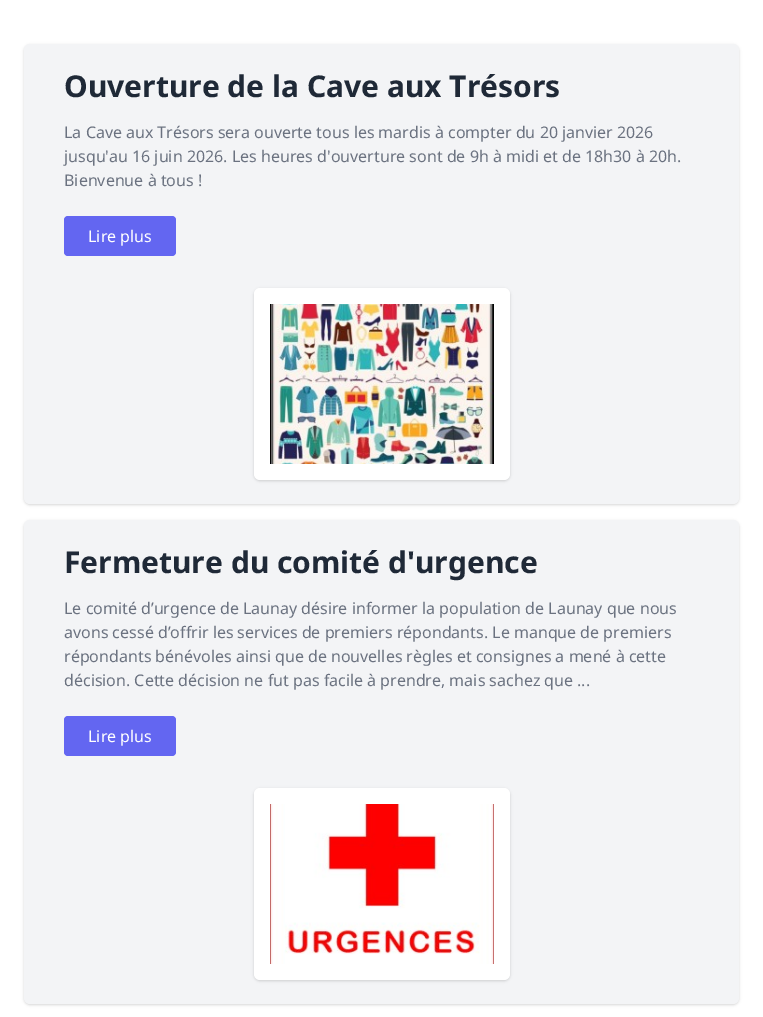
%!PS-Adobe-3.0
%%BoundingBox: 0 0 763 1017
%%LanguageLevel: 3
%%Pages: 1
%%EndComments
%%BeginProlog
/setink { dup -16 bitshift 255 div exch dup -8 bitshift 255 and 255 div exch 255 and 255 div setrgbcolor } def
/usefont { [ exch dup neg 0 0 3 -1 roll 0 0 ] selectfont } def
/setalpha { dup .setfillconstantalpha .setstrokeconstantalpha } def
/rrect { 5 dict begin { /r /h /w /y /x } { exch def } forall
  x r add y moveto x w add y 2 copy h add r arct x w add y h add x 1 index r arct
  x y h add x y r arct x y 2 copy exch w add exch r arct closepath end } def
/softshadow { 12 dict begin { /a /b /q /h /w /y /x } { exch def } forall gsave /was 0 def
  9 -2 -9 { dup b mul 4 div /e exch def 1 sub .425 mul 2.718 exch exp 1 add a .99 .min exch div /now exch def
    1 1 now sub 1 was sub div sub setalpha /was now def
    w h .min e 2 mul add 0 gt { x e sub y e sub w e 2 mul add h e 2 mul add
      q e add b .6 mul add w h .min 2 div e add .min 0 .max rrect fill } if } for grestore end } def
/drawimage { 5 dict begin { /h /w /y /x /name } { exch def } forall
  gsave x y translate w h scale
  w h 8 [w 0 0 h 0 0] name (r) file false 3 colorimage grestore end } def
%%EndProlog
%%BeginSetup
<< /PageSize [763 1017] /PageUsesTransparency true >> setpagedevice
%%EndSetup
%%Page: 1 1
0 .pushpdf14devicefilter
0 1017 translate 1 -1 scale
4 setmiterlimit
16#FFFFFF setink
0 0 763 1017 rectfill
16#000000 setink
24 45 715 460 6 1 0.06 softshadow
24 45 715 460 6 1.5 0.1 softshadow
16#F3F4F6 setink
24 44 715 460 6 rrect fill
/NotoSans-Bold 30 usefont
16#1F2937 setink
64 97 moveto (Ouverture de la Cave aux Trésors) show
/NotoSans-Regular 16 usefont
16#6B7280 setink
[
    [(La Cave aux Trésors sera ouverte tous les mardis à compter du 20 janvier 2026) 64 138]
    [(jusqu'au 16 juin 2026. Les heures d'ouverture sont de 9h à midi et de 18h30 à 20h.) 64 162]
    [(Bienvenue à tous !) 64 186]
] { aload pop moveto show } forall
16#6366F1 setink
64 216 112 40 4 rrect fill
16#FFFFFF setink
88 242 moveto (Lire plus) show
16#000000 setink
254 289 256 192 6 1 0.06 softshadow
254 289 256 192 6 1.5 0.1 softshadow
16#FFFFFF setink
254 288 256 192 6 rrect fill
(img1.raw) 270 304 224 160 drawimage
16#000000 setink
24 521 715 484 6 1 0.06 softshadow
24 521 715 484 6 1.5 0.1 softshadow
16#F3F4F6 setink
24 520 715 484 6 rrect fill
/NotoSans-Bold 30 usefont
16#1F2937 setink
64 573 moveto (Fermeture du comité d'urgence) show
/NotoSans-Regular 16 usefont
16#6B7280 setink
[
    [(Le comité d’urgence de Launay désire informer la population de Launay que nous) 64 614]
    [(avons cessé d’offrir les services de premiers répondants. Le manque de premiers) 64 638]
    [(répondants bénévoles ainsi que de nouvelles règles et consignes a mené à cette) 64 662]
    [(décision. Cette décision ne fut pas facile à prendre, mais sachez que ...) 64 686]
] { aload pop moveto show } forall
16#6366F1 setink
64 716 112 40 4 rrect fill
16#FFFFFF setink
88 742 moveto (Lire plus) show
16#000000 setink
254 789 256 192 6 1 0.06 softshadow
254 789 256 192 6 1.5 0.1 softshadow
16#FFFFFF setink
254 788 256 192 6 rrect fill
(img2.raw) 270 804 224 160 drawimage
.poppdf14devicefilter showpage
%%EOF
